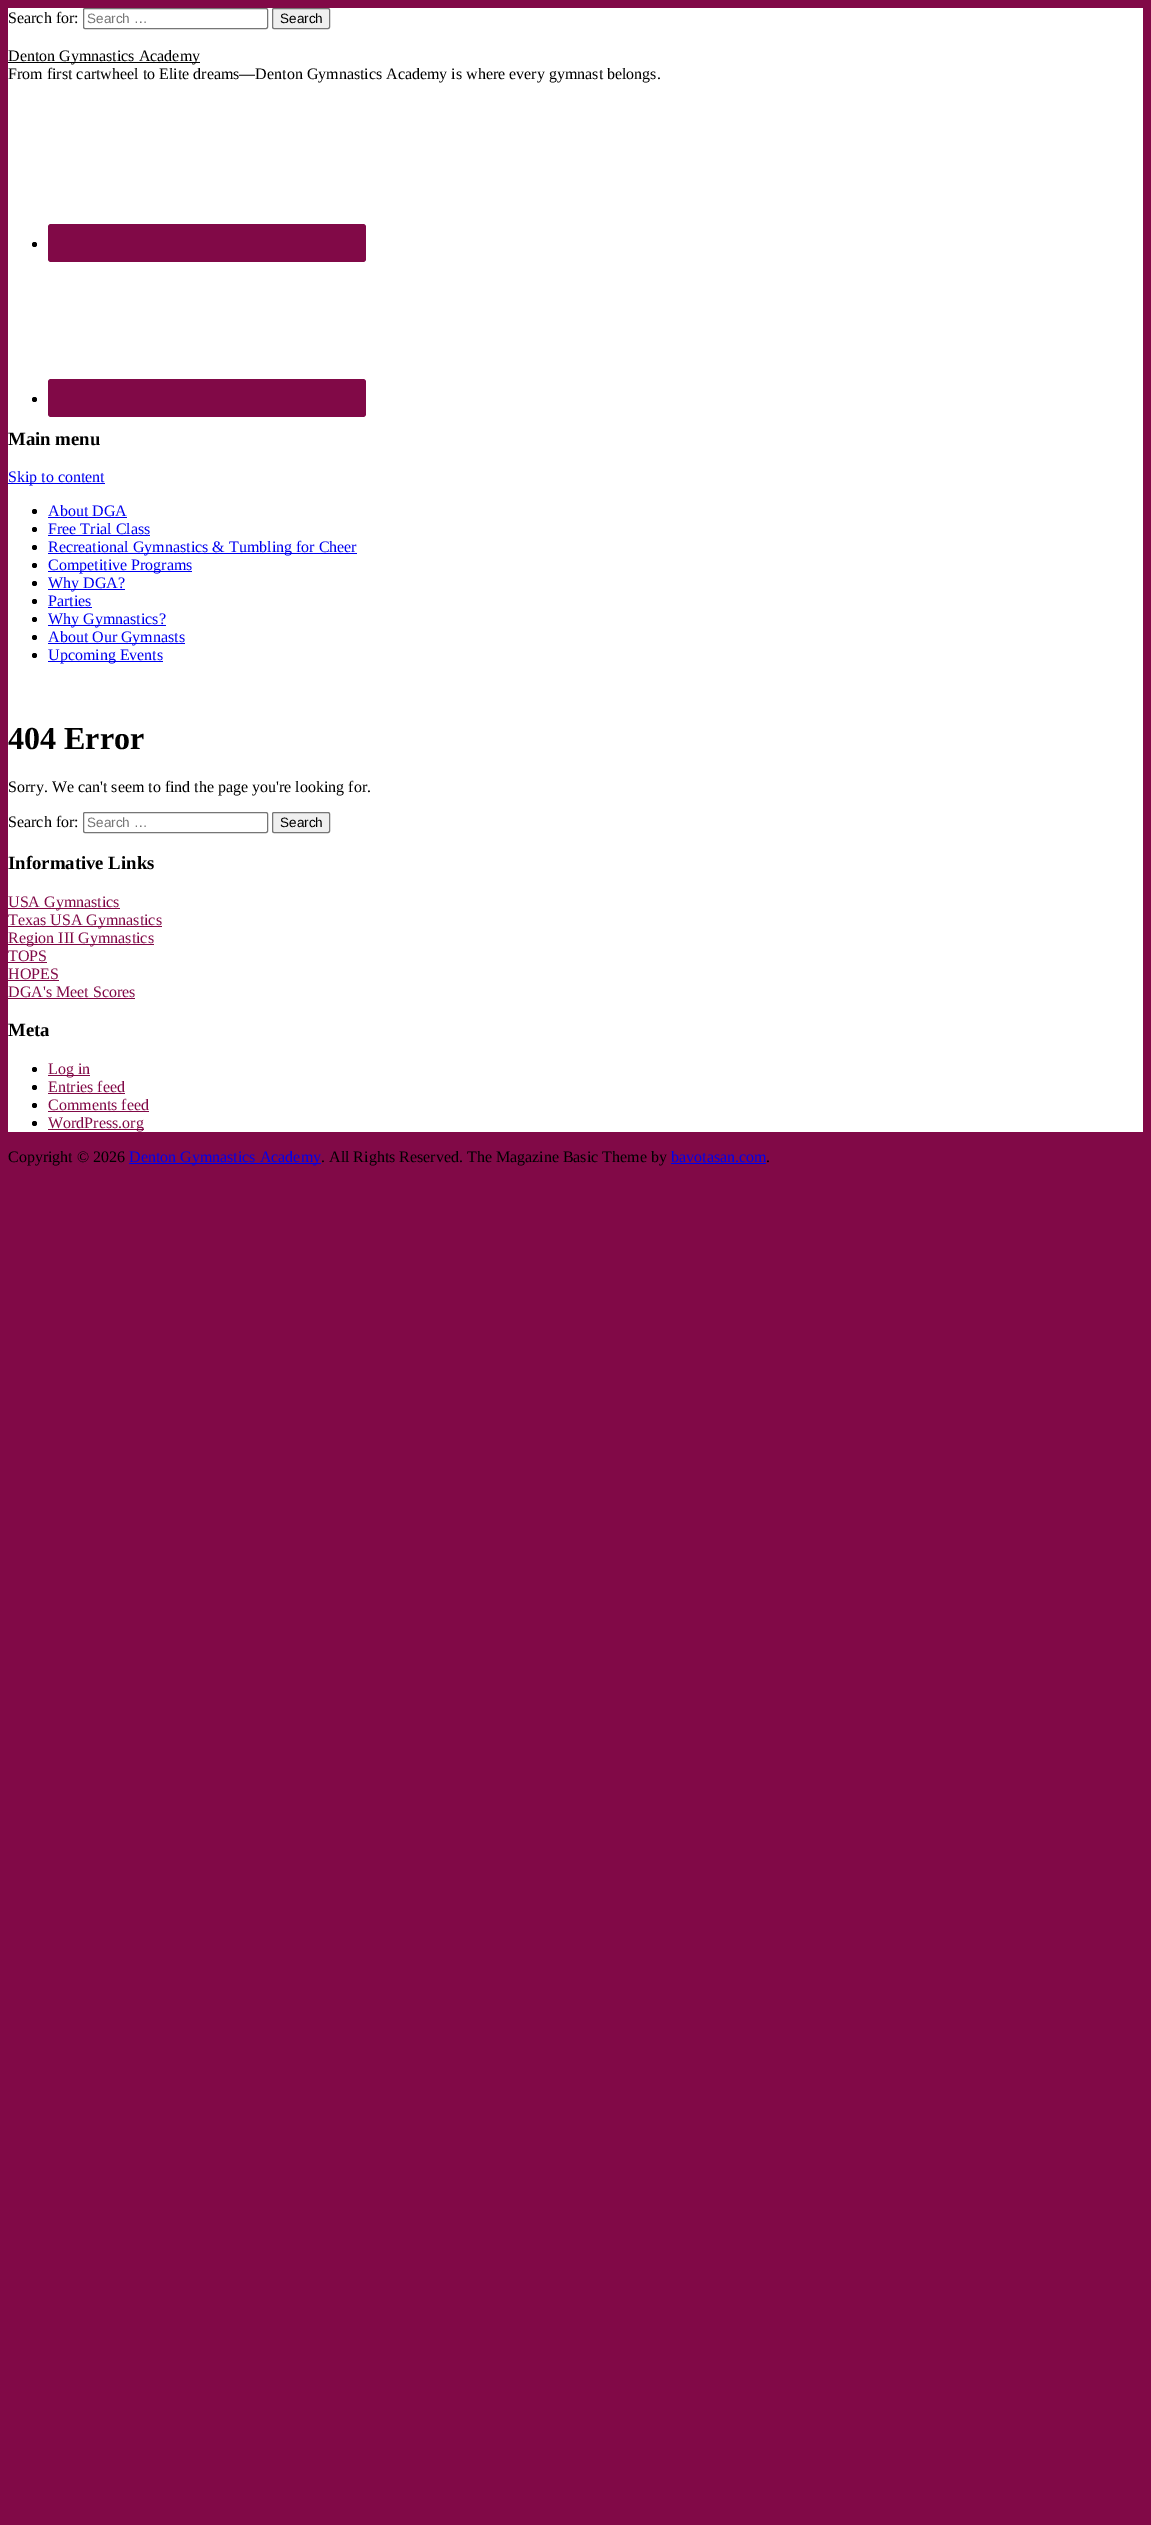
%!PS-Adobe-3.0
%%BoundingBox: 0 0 1151 2525
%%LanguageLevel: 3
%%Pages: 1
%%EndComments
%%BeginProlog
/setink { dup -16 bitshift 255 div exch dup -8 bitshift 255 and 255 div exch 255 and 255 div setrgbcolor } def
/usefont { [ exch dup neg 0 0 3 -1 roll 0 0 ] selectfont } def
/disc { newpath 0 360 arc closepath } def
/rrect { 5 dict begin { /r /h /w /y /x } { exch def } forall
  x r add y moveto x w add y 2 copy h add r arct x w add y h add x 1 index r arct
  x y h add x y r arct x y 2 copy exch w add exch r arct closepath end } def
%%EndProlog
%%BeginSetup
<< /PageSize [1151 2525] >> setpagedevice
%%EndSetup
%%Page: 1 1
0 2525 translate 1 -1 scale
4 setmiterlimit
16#810947 setink
0 0 1151 2525 rectfill
16#FFFFFF setink
8 8 1135 1124 rectfill
/LiberationSerif-Regular 16 usefont
16#000000 setink
8 23 moveto (Search for:) show
16#767676 setink
83.5 8.5 184 20 1.5 rrect stroke
/LiberationSans-Regular 13.5 usefont
16#757575 setink
87 23 moveto (Search …) show
16#EFEFEF setink
272.5 8.5 57 20 1.5 rrect gsave fill grestore
16#767676 setink
stroke
16#000000 setink
280 23 moveto (Search) show
8 62 192 1 rectfill
/LiberationSerif-Regular 16 usefont
8 61 moveto (Denton Gymnastics Academy) show
8 79 moveto (From first cartwheel to Elite dreams—Denton Gymnastics Academy is where every gymnast belongs.) show
34.5 244.5 2.5 disc fill
16#810947 setink
48 224 318 38 3 rrect fill
16#000000 setink
34.5 399.5 2.5 disc fill
16#810947 setink
48 379 318 38 3 rrect fill
/LiberationSerif-Bold 18.75 usefont
16#000000 setink
8 445 moveto (Main menu) show
16#0000EE setink
8 483 97 1 rectfill
/LiberationSerif-Regular 16 usefont
8 482 moveto (Skip to content) show
16#000000 setink
34.5 511.5 2.5 disc fill
16#0000EE setink
48 516 moveto (About DGA) show
48 517 79 1 rectfill
16#000000 setink
34.5 529.5 2.5 disc fill
16#0000EE setink
48 534 moveto (Free Trial Class) show
48 535 102 1 rectfill
16#000000 setink
34.5 547.5 2.5 disc fill
16#0000EE setink
48 553 309 1 rectfill
48 552 moveto (Recreational Gymnastics & Tumbling for Cheer) show
16#000000 setink
34.5 565.5 2.5 disc fill
16#0000EE setink
48 571 144 1 rectfill
48 570 moveto (Competitive Programs) show
16#000000 setink
34.5 583.5 2.5 disc fill
16#0000EE setink
48 589 77 1 rectfill
48 588 moveto (Why DGA?) show
16#000000 setink
34.5 601.5 2.5 disc fill
16#0000EE setink
48 606 moveto (Parties) show
48 607 44 1 rectfill
16#000000 setink
34.5 619.5 2.5 disc fill
16#0000EE setink
48 625 118 1 rectfill
48 624 moveto (Why Gymnastics?) show
16#000000 setink
34.5 637.5 2.5 disc fill
16#0000EE setink
48 643 137 1 rectfill
48 642 moveto (About Our Gymnasts) show
16#000000 setink
34.5 655.5 2.5 disc fill
16#0000EE setink
48 661 115 1 rectfill
48 660 moveto (Upcoming Events) show
/LiberationSerif-Bold 32 usefont
16#000000 setink
8 749 moveto (404 Error) show
/LiberationSerif-Regular 16 usefont
8 792 moveto (Sorry. We can't seem to find the page you're looking for.) show
8 827 moveto (Search for:) show
16#767676 setink
83.5 812.5 184 20 1.5 rrect stroke
/LiberationSans-Regular 13.5 usefont
16#757575 setink
87 827 moveto (Search …) show
16#EFEFEF setink
272.5 812.5 57 20 1.5 rrect gsave fill grestore
16#767676 setink
stroke
16#000000 setink
280 827 moveto (Search) show
/LiberationSerif-Bold 18.75 usefont
8 869 moveto (Informative Links) show
16#810947 setink
8 908 112 1 rectfill
/LiberationSerif-Regular 16 usefont
8 907 moveto (USA Gymnastics) show
8 926 154 1 rectfill
8 925 moveto (Texas USA Gymnastics) show
8 944 146 1 rectfill
8 943 moveto (Region III Gymnastics) show
8 961 moveto (TOPS) show
8 962 39 1 rectfill
8 979 moveto (HOPES) show
8 980 51 1 rectfill
8 997 moveto (DGA's Meet Scores) show
8 998 127 1 rectfill
/LiberationSerif-Bold 18.75 usefont
16#000000 setink
8 1036 moveto (Meta) show
34.5 1069.5 2.5 disc fill
16#810947 setink
48 1075 42 1 rectfill
/LiberationSerif-Regular 16 usefont
48 1074 moveto (Log in) show
16#000000 setink
34.5 1087.5 2.5 disc fill
16#810947 setink
48 1092 moveto (Entries feed) show
48 1093 77 1 rectfill
16#000000 setink
34.5 1105.5 2.5 disc fill
16#810947 setink
48 1110 moveto (Comments feed) show
48 1111 101 1 rectfill
16#000000 setink
34.5 1123.5 2.5 disc fill
16#810947 setink
48 1129 96 1 rectfill
48 1128 moveto (WordPress.org) show
16#000000 setink
8 1162 moveto (Copyright © 2026) show
16#0000EE setink
129 1163 192 1 rectfill
129 1162 moveto (Denton Gymnastics Academy) show
16#000000 setink
321 1162 moveto (. All Rights Reserved. The Magazine Basic Theme by) show
16#0000EE setink
671 1162 moveto (bavotasan.com) show
16#000000 setink
766 1162 moveto (.) show
16#0000EE setink
671 1163 95 1 rectfill
showpage
%%EOF
